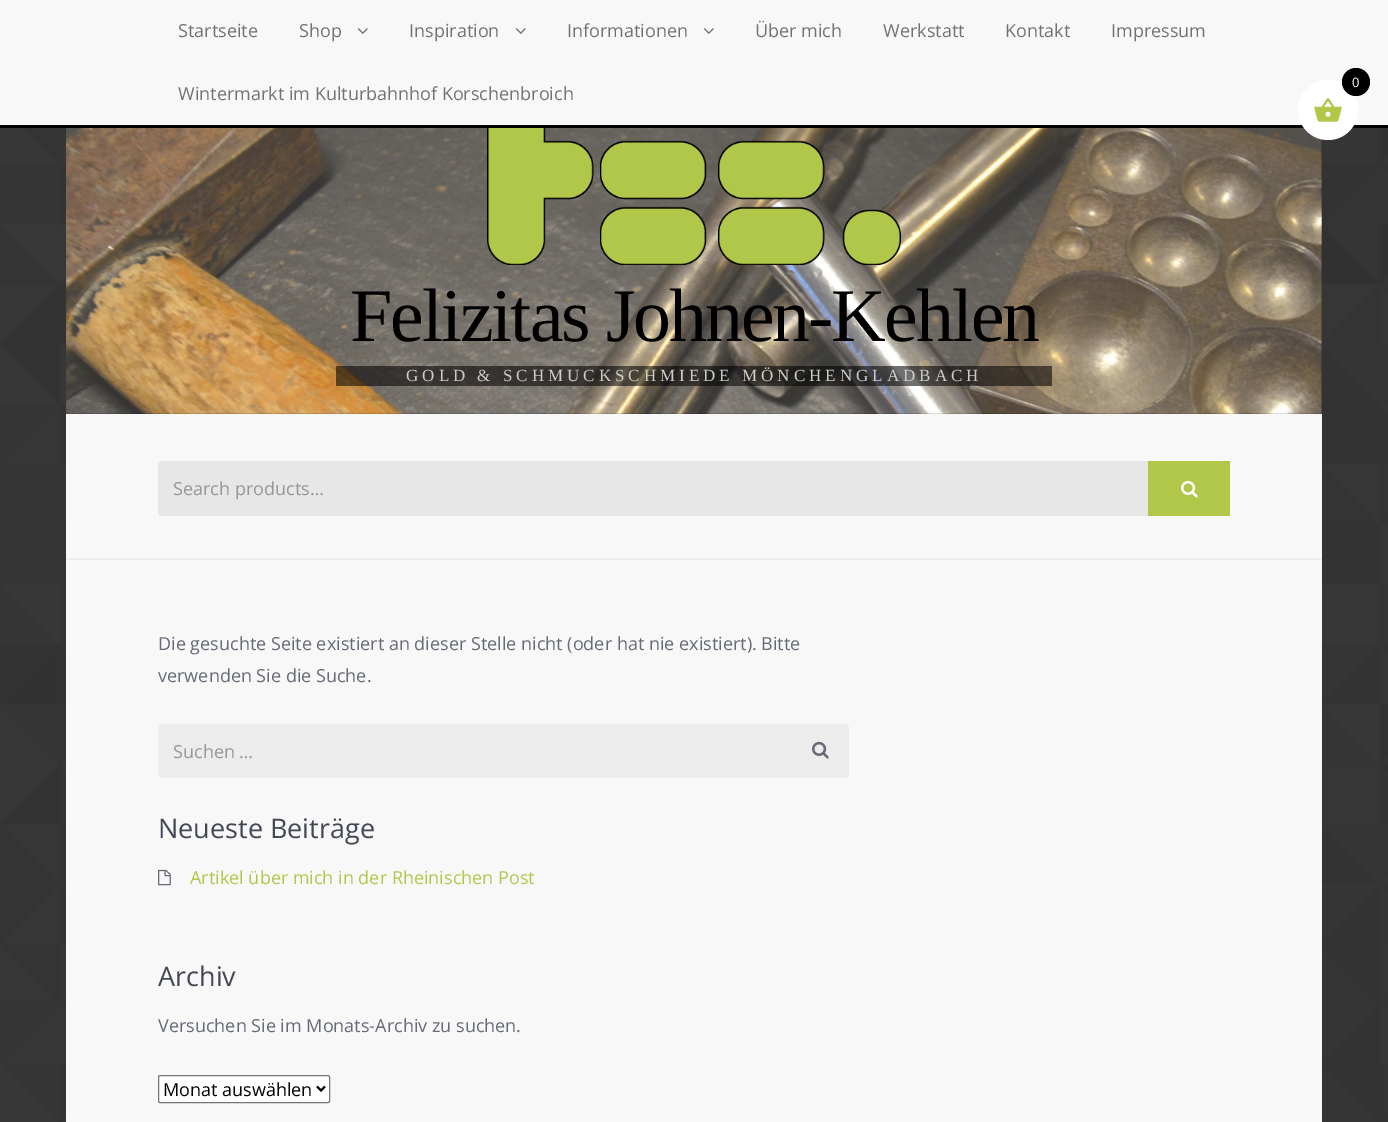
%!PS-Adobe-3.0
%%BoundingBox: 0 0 1388 1122
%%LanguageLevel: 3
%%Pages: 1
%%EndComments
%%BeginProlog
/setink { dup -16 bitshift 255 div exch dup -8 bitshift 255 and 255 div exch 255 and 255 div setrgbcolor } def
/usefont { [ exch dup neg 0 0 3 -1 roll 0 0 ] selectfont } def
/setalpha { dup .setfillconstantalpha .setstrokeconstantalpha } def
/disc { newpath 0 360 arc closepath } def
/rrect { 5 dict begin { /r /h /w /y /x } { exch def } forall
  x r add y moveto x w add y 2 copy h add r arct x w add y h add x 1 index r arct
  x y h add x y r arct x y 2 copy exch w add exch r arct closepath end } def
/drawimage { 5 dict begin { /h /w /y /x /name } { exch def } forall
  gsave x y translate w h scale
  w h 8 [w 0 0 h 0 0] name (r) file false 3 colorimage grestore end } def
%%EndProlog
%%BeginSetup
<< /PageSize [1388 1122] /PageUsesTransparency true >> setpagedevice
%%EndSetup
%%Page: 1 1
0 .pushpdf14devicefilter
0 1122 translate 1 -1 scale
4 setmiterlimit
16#FFFFFF setink
0 0 1388 1122 rectfill
(img1.raw) 0 128 1388 994 drawimage
16#F8F8F9 setink
66 414 1256 708 rectfill
16#000000 setink
66 139 1256 275 rectfill
(img2.raw) 66 128 1256 286 drawimage
16#F8F8F9 setink
0 0 1388 125 rectfill
16#000000 setink
0 125 1388 3 rectfill
/OpenSans-Regular 18 usefont
16#727272 setink
178 37 moveto (Startseite) show
299 37 moveto (Shop) show
(img3.raw) 357 28 11 6 drawimage
409 37 moveto (Inspiration) show
(img3.raw) 515 28 11 6 drawimage
567 37 moveto (Informationen) show
(img3.raw) 703 28 11 6 drawimage
[
    [(Über mich) 755 37]
    [(Werkstatt) 883 37]
    [(Kontakt) 1005 37]
    [(Impressum) 1111 37]
    [(Wintermarkt im Kulturbahnhof Korschenbroich) 178 100]
] { aload pop moveto show } forall
(img4.raw) 487 128 414 137 drawimage
/LiberationSerif-Regular 75.75 usefont
16#000000 setink
350 341 moveto -2 0 (Felizitas Johnen-Kehlen) ashow
0.56 setalpha
336 366 716 20 rectfill
/LiberationSerif-Regular 17 usefont
1 setalpha
16#CCCCCB setink
406 381 moveto 4 0 (GOLD & SCHMUCKSCHMIEDE MÖNCHENGLADBACH) ashow
0.04 setalpha
16#000000 setink
66 558 1256 2 rectfill
1 setalpha
16#E7E7E8 setink
158 461 1072 55 4 rrect fill
/OpenSans-Regular 18 usefont
16#969697 setink
173 495 moveto (Search products…) show
16#B0C749 setink
1148 461 82 55 rectfill
(img5.raw) 1181 480 17 18 drawimage
16#666A76 setink
158 650 moveto (Die gesuchte Seite existiert an dieser Stelle nicht \(oder hat nie existiert\). Bitte) show
158 682 moveto (verwenden Sie die Suche.) show
16#ECECED setink
158 724 691 54 4 rrect fill
16#969697 setink
173 758 moveto (Suchen …) show
(img6.raw) 812 741 17 18 drawimage
/OpenSans-Regular 27 usefont
16#444854 setink
158 838 moveto (Neueste Beiträge) show
(img7.raw) 158 869 13 17 drawimage
/OpenSans-Regular 18 usefont
16#B0C749 setink
190 884 moveto (Artikel über mich in der Rheinischen Post) show
/OpenSans-Regular 27 usefont
16#444854 setink
158 986 moveto (Archiv) show
/OpenSans-Regular 18 usefont
16#666A76 setink
158 1032 moveto (Versuchen Sie im Monats-Archiv zu suchen.) show
16#FFFFFF setink
158.5 1075.5 171 27 1.5 rrect gsave fill grestore
16#767676 setink
stroke
16#000000 setink
2 setlinewidth
317 1086.5 moveto 321 1090.5 lineto 325 1086.5 lineto stroke
163 1096 moveto (Monat auswählen) show
16#FFFFFF setink
1328 110 30 disc fill
16#000000 setink
1356 82 14 disc fill
/OpenSans-Regular 13 usefont
16#FFFFFF setink
1352 87 moveto (0) show
(img8.raw) 1314 98 28 24 drawimage
.poppdf14devicefilter showpage
%%EOF
